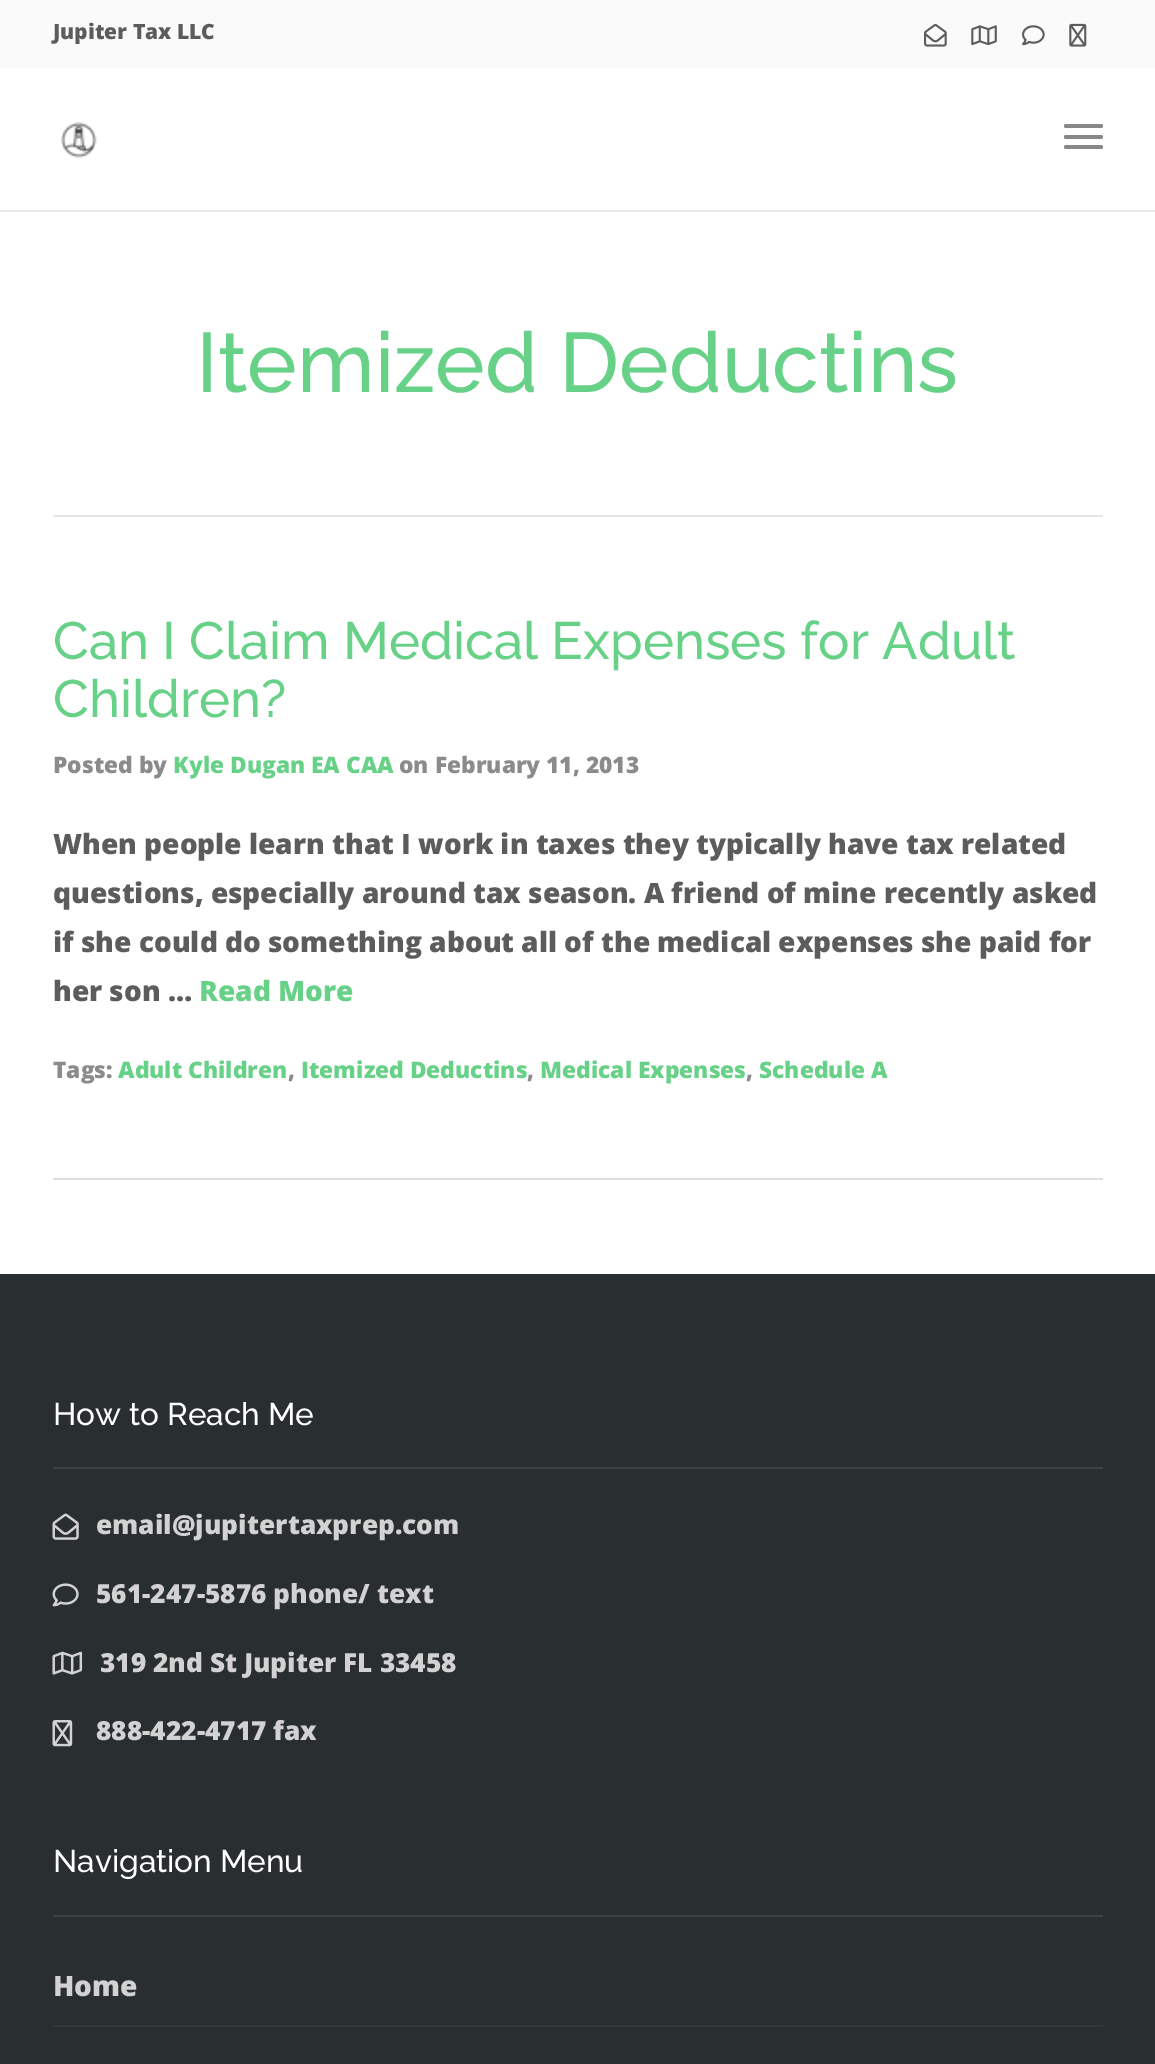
%!PS-Adobe-3.0
%%BoundingBox: 0 0 1155 2064
%%LanguageLevel: 3
%%Pages: 1
%%EndComments
%%BeginProlog
/setink { dup -16 bitshift 255 div exch dup -8 bitshift 255 and 255 div exch 255 and 255 div setrgbcolor } def
/usefont { [ exch dup neg 0 0 3 -1 roll 0 0 ] selectfont } def
/rrect { 5 dict begin { /r /h /w /y /x } { exch def } forall
  x r add y moveto x w add y 2 copy h add r arct x w add y h add x 1 index r arct
  x y h add x y r arct x y 2 copy exch w add exch r arct closepath end } def
/drawimage { 5 dict begin { /h /w /y /x /name } { exch def } forall
  gsave x y translate w h scale
  w h 8 [w 0 0 h 0 0] name (r) file false 3 colorimage grestore end } def
%%EndProlog
%%BeginSetup
<< /PageSize [1155 2064] >> setpagedevice
%%EndSetup
%%Page: 1 1
0 2064 translate 1 -1 scale
4 setmiterlimit
16#FFFFFF setink
0 0 1155 2064 rectfill
16#E7E7E7 setink
0 210 1155 2 rectfill
16#FAFAFA setink
0 0 1155 68 rectfill
/OpenSans-ExtraBold 21 usefont
16#5C5C5C setink
53 39 moveto (Jupiter Tax LLC) show
(img1.raw) 924 23 23 24 drawimage
(img2.raw) 971 25 26 21 drawimage
(img3.raw) 1022 25 23 21 drawimage
(img4.raw) 1069 23 18 24 drawimage
(img5.raw) 61 122 36 36 drawimage
16#888888 setink
1064 124 39 4 2 rrect fill
1064 135 39 4 2 rrect fill
1064 145 39 4 2 rrect fill
16#E6E6E6 setink
53 515 1050 2 rectfill
/Raleway-Medium 84 usefont
16#67D287 setink
196 392 moveto (Itemized Deductins) show
16#DEDEDE setink
53 1178 1050 2 rectfill
/Raleway-Medium 52.5 usefont
16#67D287 setink
53 659 moveto (Can I Claim Medical Expenses for Adult) show
53 717 moveto (Children?) show
/OpenSans-ExtraBold 22.75 usefont
16#8B8B8B setink
53 773 moveto (Posted by) show
16#67D287 setink
173 773 moveto (Kyle Dugan EA CAA) show
16#8B8B8B setink
399 773 moveto (on February 11, 2013) show
/OpenSans-ExtraBold 28 usefont
16#5C5C5C setink
[
    [(When people learn that I work in taxes they typically have tax related) 53 854]
    [(questions, especially around tax season. A friend of mine recently asked) 53 903]
    [(if she could do something about all of the medical expenses she paid for) 53 952]
    [(her son …) 53 1001]
] { aload pop moveto show } forall
16#67D287 setink
199 1001 moveto (Read More) show
/OpenSans-ExtraBold 22.75 usefont
16#8B8B8B setink
53 1078 moveto (Tags:) show
16#67D287 setink
118 1078 moveto (Adult Children) show
16#8B8B8B setink
288 1078 moveto (,) show
16#67D287 setink
301 1078 moveto (Itemized Deductins) show
16#8B8B8B setink
527 1078 moveto (,) show
16#67D287 setink
540 1078 moveto (Medical Expenses) show
16#8B8B8B setink
746 1078 moveto (,) show
16#67D287 setink
759 1078 moveto (Schedule A) show
16#292E31 setink
0 1274 1155 790 rectfill
16#3E4346 setink
53 1467 1050 2 rectfill
/Raleway-Medium 31.5 usefont
16#FFFFFF setink
53 1425 moveto (How to Reach Me) show
(img6.raw) 52 1513 27 27 drawimage
/OpenSans-ExtraBold 26.25 usefont
16#D2D2D2 setink
96 1534 moveto (email@jupitertaxprep.com) show
(img7.raw) 52 1583 27 24 drawimage
96 1603 moveto (561-247-5876 phone/ text) show
(img8.raw) 52 1651 31 24 drawimage
100 1672 moveto (319 2nd St Jupiter FL 33458) show
(img9.raw) 52 1720 21 27 drawimage
96 1740 moveto (888-422-4717 fax) show
16#3E4346 setink
53 1915 1050 2 rectfill
/Raleway-Medium 31.5 usefont
16#FFFFFF setink
53 1872 moveto (Navigation Menu) show
16#34383B setink
53 2025 1050 2 rectfill
/OpenSans-ExtraBold 28 usefont
16#D2D2D2 setink
53 1996 moveto (Home) show
showpage
%%EOF
